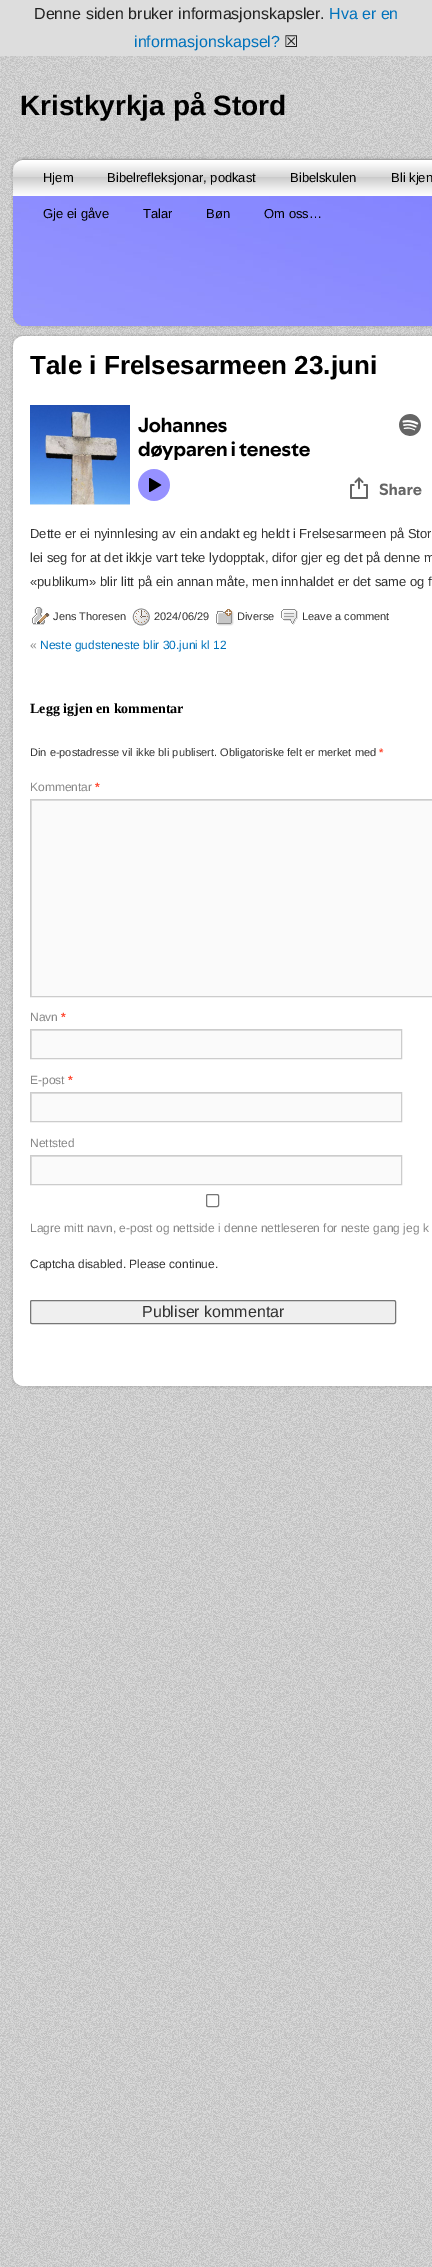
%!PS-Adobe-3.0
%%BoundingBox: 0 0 432 2267
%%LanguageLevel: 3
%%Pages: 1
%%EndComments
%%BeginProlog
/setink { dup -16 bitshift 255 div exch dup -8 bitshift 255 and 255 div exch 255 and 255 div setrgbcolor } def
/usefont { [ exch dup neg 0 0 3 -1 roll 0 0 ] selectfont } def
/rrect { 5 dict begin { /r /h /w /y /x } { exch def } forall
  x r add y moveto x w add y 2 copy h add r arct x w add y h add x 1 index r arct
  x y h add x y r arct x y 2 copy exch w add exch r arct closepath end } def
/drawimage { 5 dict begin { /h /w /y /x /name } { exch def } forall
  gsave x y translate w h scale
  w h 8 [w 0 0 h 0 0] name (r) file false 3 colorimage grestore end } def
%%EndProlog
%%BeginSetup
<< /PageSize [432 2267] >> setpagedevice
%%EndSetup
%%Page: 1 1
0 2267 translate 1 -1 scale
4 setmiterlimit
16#FFFFFF setink
0 0 432 2267 rectfill
(img1.raw) 0 56 432 2211 drawimage
16#DDDDDD setink
0 0 432 56 rectfill
/LiberationSans-Regular 16 usefont
16#222222 setink
34 19 moveto (Denne siden bruker informasjonskapsler.) show
16#0072BC setink
329 19 moveto (Hva er en) show
134 47 moveto (informasjonskapsel?) show
/DejaVuSans-Regular 16 usefont
16#222222 setink
284 47 moveto (☒) show
/LiberationSans-Bold 28 usefont
16#000000 setink
20 115 moveto (Kristkyrkja på Stord) show
(img2.raw) 10 156 422 40 drawimage
/LiberationSans-Regular 13 usefont
[
    [(Hjem) 43 182]
    [(Bibelrefleksjonar, podkast) 107 182]
    [(Bibelskulen) 290 182]
    [(Bli kjen) 391 182]
] { aload pop moveto show } forall
(img4.raw) 13 196 419 130 drawimage
[
    [(Gje ei gåve) 43 218]
    [(Talar) 143 218]
    [(Bøn) 206 218]
    [(Om oss…) 264 218]
] { aload pop moveto show } forall
(img3.raw) 10 196 3 122 drawimage
(img5.raw) 10 318 11 8 drawimage
(img6.raw) 10 326 422 3 drawimage
(img7.raw) 10 346 422 1031 drawimage
(img8.raw) 10 333 422 13 drawimage
/LiberationSans-Bold 26 usefont
30 374 moveto (Tale i Frelsesarmeen 23.juni) show
(img9.raw) 30 405 392 100 drawimage
/LiberationSans-Regular 13 usefont
16#333333 setink
[
    [(Dette er ei nyinnlesing av ein andakt eg heldt i Frelsesarmeen på Stor) 30 538]
    [(lei seg for at det ikkje vart teke lydopptak, difor gjer eg det på denne m) 30 562]
    [(«publikum» blir litt på ein annan måte, men innhaldet er det same og f) 30 586]
] { aload pop moveto show } forall
(img10.raw) 32 607 18 18 drawimage
/LiberationSans-Regular 11 usefont
53 620 moveto (Jens Thoresen) show
(img11.raw) 132 608 18 18 drawimage
154 620 moveto (2024/06/29) show
(img12.raw) 216 609 18 17 drawimage
237 620 moveto (Diverse) show
(img13.raw) 281 609 17 16 drawimage
302 620 moveto (Leave a comment) show
/LiberationSans-Regular 12 usefont
16#888888 setink
30 649 moveto («) show
16#0072BC setink
40 649 moveto (Neste gudsteneste blir 30.juni kl 12) show
/LiberationSerif-Bold 14 usefont
16#000000 setink
30 713 moveto (Legg igjen en kommentar) show
/LiberationSans-Regular 11 usefont
16#333333 setink
30 756 moveto (Din e-postadresse vil ikke bli publisert. Obligatoriske felt er merket med) show
/LiberationSans-Bold 11 usefont
16#FF4B33 setink
379 756 moveto (*) show
/LiberationSans-Regular 12 usefont
16#888888 setink
30 791 moveto (Kommentar) show
/LiberationSans-Bold 12 usefont
16#FF4B33 setink
95 791 moveto (*) show
16#FAFAFA setink
32 801 400 195 rectfill
gsave
31 800 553 196 rectclip
16#E1E1E1 setink
-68 701 moveto 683 701 lineto 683 1095 lineto -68 1095 lineto closepath 32 801 moveto 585 801 lineto 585 997 lineto 32 997 lineto closepath eofill
grestore
16#CCCCCC setink
30.5 799.5 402 197 rectstroke
/LiberationSans-Regular 12 usefont
16#888888 setink
30 1021 moveto (Navn) show
/LiberationSans-Bold 12 usefont
16#FF4B33 setink
61 1021 moveto (*) show
16#FAFAFA setink
32 1031 369 27 rectfill
gsave
31 1030 370 28 rectclip
16#E1E1E1 setink
-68 931 moveto 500 931 lineto 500 1157 lineto -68 1157 lineto closepath 32 1031 moveto 402 1031 lineto 402 1059 lineto 32 1059 lineto closepath eofill
grestore
16#CCCCCC setink
30.5 1029.5 371 29 rectstroke
/LiberationSans-Regular 12 usefont
16#888888 setink
30 1084 moveto (E-post) show
/LiberationSans-Bold 12 usefont
16#FF4B33 setink
68 1084 moveto (*) show
16#FAFAFA setink
32 1094 369 27 rectfill
gsave
31 1093 370 28 rectclip
16#E1E1E1 setink
-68 994 moveto 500 994 lineto 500 1220 lineto -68 1220 lineto closepath 32 1094 moveto 402 1094 lineto 402 1122 lineto 32 1122 lineto closepath eofill
grestore
16#CCCCCC setink
30.5 1092.5 371 29 rectstroke
/LiberationSans-Regular 12 usefont
16#888888 setink
30 1147 moveto (Nettsted) show
16#FAFAFA setink
32 1157 369 27 rectfill
gsave
31 1156 370 28 rectclip
16#E1E1E1 setink
-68 1057 moveto 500 1057 lineto 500 1283 lineto -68 1283 lineto closepath 32 1157 moveto 402 1157 lineto 402 1185 lineto 32 1185 lineto closepath eofill
grestore
16#CCCCCC setink
30.5 1155.5 371 29 rectstroke
16#767676 setink
206.5 1194.5 12 12 1.5 rrect stroke
16#888888 setink
30 1232 moveto (Lagre mitt navn, e-post og nettside i denne nettleseren for neste gang jeg k) show
16#333333 setink
30 1268 moveto (Captcha disabled. Please continue.) show
16#EFEFEF setink
30.5 1300.5 365 23 1.5 rrect gsave fill grestore
16#767676 setink
stroke
/LiberationSans-Regular 16 usefont
16#333333 setink
142 1317 moveto (Publiser kommentar) show
(img14.raw) 10 1377 422 13 drawimage
showpage
%%EOF
